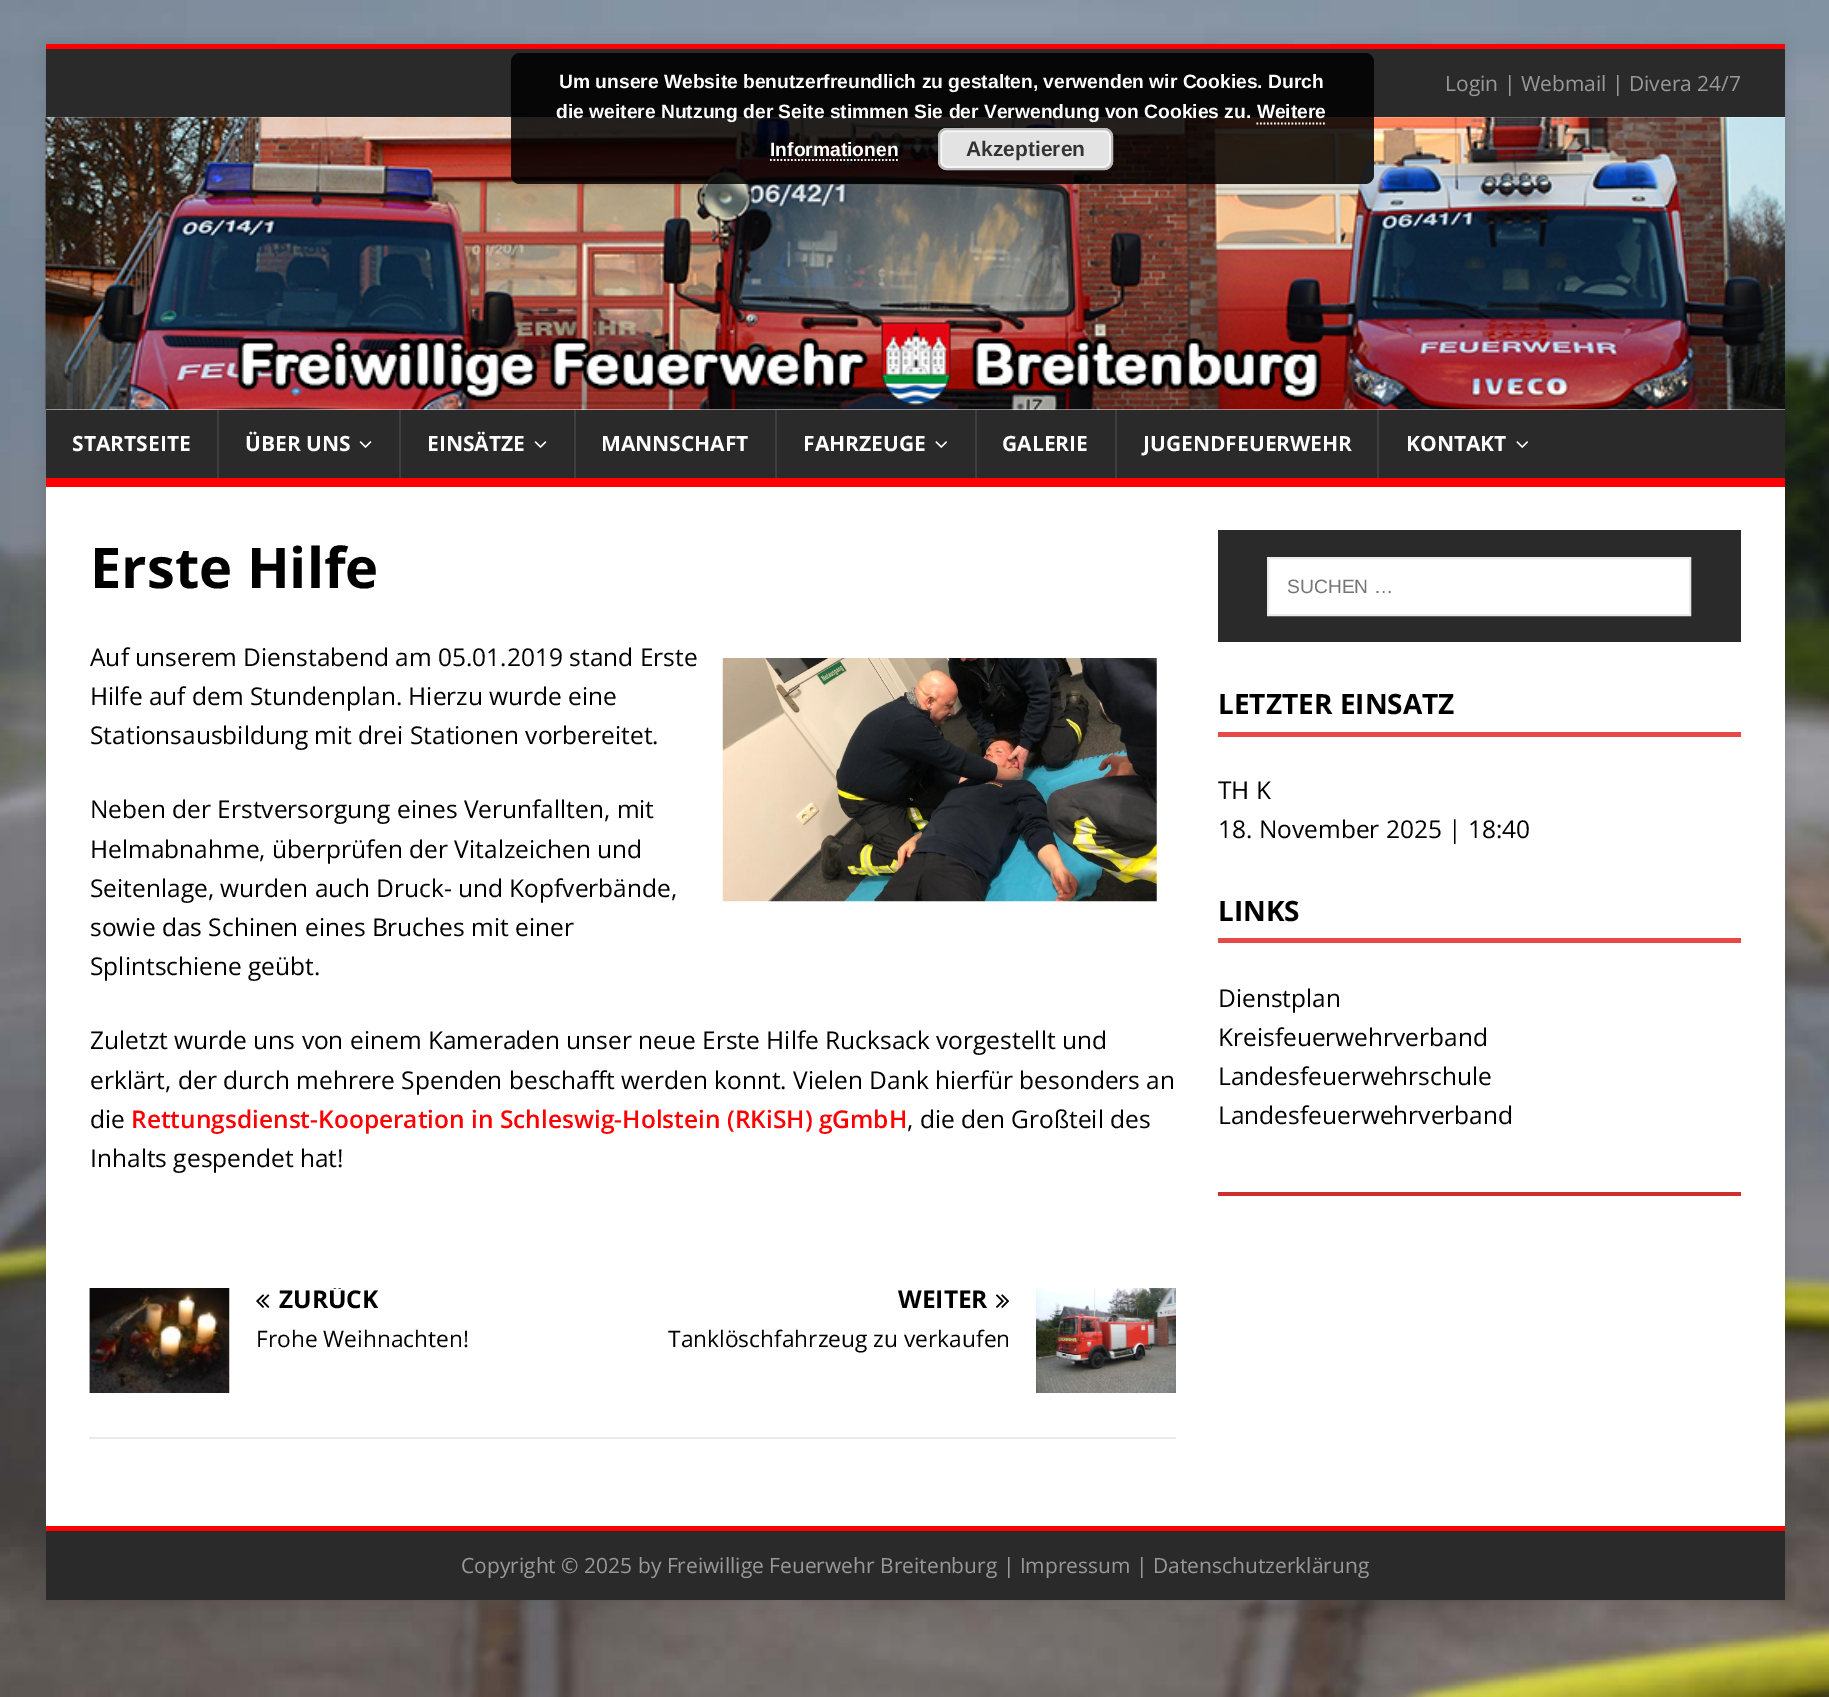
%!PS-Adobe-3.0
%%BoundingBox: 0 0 1829 1697
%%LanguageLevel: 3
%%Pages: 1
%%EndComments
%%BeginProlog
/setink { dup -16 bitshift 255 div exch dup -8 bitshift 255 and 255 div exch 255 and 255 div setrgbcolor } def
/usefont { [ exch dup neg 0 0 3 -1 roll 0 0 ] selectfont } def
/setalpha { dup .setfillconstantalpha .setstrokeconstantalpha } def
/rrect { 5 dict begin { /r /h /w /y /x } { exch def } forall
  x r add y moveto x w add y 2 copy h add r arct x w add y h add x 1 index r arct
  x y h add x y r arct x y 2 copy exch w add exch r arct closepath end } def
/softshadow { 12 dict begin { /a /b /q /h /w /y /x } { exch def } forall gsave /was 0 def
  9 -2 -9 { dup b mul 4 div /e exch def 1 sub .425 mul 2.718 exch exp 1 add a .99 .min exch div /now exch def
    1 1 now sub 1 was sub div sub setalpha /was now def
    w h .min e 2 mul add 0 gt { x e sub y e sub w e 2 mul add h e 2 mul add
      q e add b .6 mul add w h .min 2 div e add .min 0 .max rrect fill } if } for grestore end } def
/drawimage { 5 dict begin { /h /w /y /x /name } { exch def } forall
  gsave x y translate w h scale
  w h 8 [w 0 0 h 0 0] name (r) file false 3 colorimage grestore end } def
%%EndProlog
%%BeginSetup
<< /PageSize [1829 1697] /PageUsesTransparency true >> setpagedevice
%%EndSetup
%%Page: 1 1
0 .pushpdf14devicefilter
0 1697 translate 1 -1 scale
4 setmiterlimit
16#FFFFFF setink
0 0 1829 1697 rectfill
(img1.raw) 0 0 1829 1697 drawimage
16#323232 setink
46 44 1739 1556 0 9 0.17 softshadow
16#2A2A2A setink
46 49 1739 68 rectfill
16#FFFFFF setink
46 117 1739 293 rectfill
(img2.raw) 45 117 1740 293 drawimage
0.85 setalpha
16#000000 setink
511 53 863 131 9 rrect fill
/LiberationSans-Bold 19.25 usefont
1 setalpha
16#FFFFFF setink
[
    [(Um unsere Website benutzerfreundlich zu gestalten, verwenden wir Cookies. Durch) 559 88]
    [(die weitere Nutzung der Seite stimmen Sie der Verwendung von Cookies zu. Weitere) 556 118]
    [(Informationen) 770 156]
] { aload pop moveto show } forall
1.8 setlinewidth
[1.75 1.75] 0 setdash
1256.5 123.5 moveto 1326.5 123.5 lineto stroke
770 160 moveto 898 160 lineto stroke
16#E3E3E3 setink
938 128 175 42 9 rrect fill
16#F6F6F6 setink
2 setlinewidth
[] 0 setdash
941 131 169 36 6 rrect stroke
16#BBBBBB setink
939 129 173 40 8 rrect stroke
/LiberationSans-Bold 21 usefont
16#333333 setink
966 156 moveto (Akzeptieren) show
16#FF0002 setink
46 44 1739 5 rectfill
/OpenSans-Regular 21 usefont
16#999999 setink
1445 91 moveto (Login | Webmail | Divera 24/7) show
16#2A2A2A setink
46 410 1739 68 rectfill
16#FF0002 setink
46 478 1739 9 rectfill
/OpenSans-Bold 21 usefont
16#FFFFFF setink
72 451 moveto (STARTSEITE) show
16#3F3F3F setink
217 410 2 68 rectfill
16#FFFFFF setink
245 451 moveto (ÜBER UNS) show
(img3.raw) 359 441 13 7 drawimage
16#3F3F3F setink
399 410 2 68 rectfill
16#FFFFFF setink
427 451 moveto (EINSÄTZE) show
(img3.raw) 534 441 13 7 drawimage
16#3F3F3F setink
574 410 2 68 rectfill
16#FFFFFF setink
601 451 moveto (MANNSCHAFT) show
16#3F3F3F setink
775 410 2 68 rectfill
16#FFFFFF setink
803 451 moveto (FAHRZEUGE) show
(img4.raw) 935 441 12 7 drawimage
16#3F3F3F setink
975 410 2 68 rectfill
16#FFFFFF setink
1002 451 moveto (GALERIE) show
16#3F3F3F setink
1115 410 2 68 rectfill
16#FFFFFF setink
1143 451 moveto (JUGENDFEUERWEHR) show
16#3F3F3F setink
1377 410 2 68 rectfill
16#FFFFFF setink
1406 451 moveto (KONTAKT) show
(img4.raw) 1516 441 12 7 drawimage
46 487 1739 1039 rectfill
/OpenSans-Bold 56 usefont
16#000000 setink
90 588 moveto (Erste Hilfe) show
/OpenSans-Regular 24.5 usefont
[
    [(Auf unserem Dienstabend am 05.01.2019 stand Erste) 90 666]
    [(Hilfe auf dem Stundenplan. Hierzu wurde eine) 90 705]
    [(Stationsausbildung mit drei Stationen vorbereitet.) 90 744]
] { aload pop moveto show } forall
(img5.raw) 722 658 435 244 drawimage
[
    [(Neben der Erstversorgung eines Verunfallten, mit) 90 818]
    [(Helmabnahme, überprüfen der Vitalzeichen und) 90 858]
    [(Seitenlage, wurden auch Druck- und Kopfverbände,) 90 897]
    [(sowie das Schinen eines Bruches mit einer) 90 936]
    [(Splintschiene geübt.) 90 975]
    [(Zuletzt wurde uns von einem Kameraden unser neue Erste Hilfe Rucksack vorgestellt und) 90 1049]
    [(erklärt, der durch mehrere Spenden beschafft werden konnt. Vielen Dank hierfür besonders an) 90 1089]
    [(die) 90 1128]
] { aload pop moveto show } forall
/OpenSans-SemiBold 24.5 usefont
16#FF0002 setink
131 1128 moveto (Rettungsdienst-Kooperation in Schleswig-Holstein \(RKiSH\) gGmbH) show
/OpenSans-Regular 24.5 usefont
16#000000 setink
907 1128 moveto (, die den Großteil des) show
90 1167 moveto (Inhalts gespendet hat!) show
16#EBEBEB setink
89 1437 1087 2 rectfill
(img6.raw) 89 1288 141 105 drawimage
(img7.raw) 256 1294 14 14 drawimage
gsave
256 1288 364 25 rectclip
/OpenSans-Bold 24.5 usefont
16#000000 setink
279 1308 moveto (ZURÜCK) show
grestore
/OpenSans-Regular 22.75 usefont
16#000000 setink
256 1347 moveto (Frohe Weihnachten!) show
/OpenSans-Bold 24.5 usefont
898 1308 moveto (WEITER) show
(img8.raw) 996 1294 14 14 drawimage
(img9.raw) 1036 1288 140 105 drawimage
/OpenSans-Regular 22.75 usefont
668 1347 moveto (Tanklöschfahrzeug zu verkaufen) show
16#2A2A2A setink
1218 530 523 112 rectfill
16#FFFFFF setink
1268 558 moveto 1690 558 lineto 1690 615 lineto 1268 615 lineto closepath gsave fill grestore
16#EBEBEB setink
stroke
/LiberationSans-Regular 19.25 usefont
16#757575 setink
1287 593 moveto (SUCHEN …) show
16#E64946 setink
1218 732 523 5 rectfill
/OpenSans-Bold 28 usefont
16#000000 setink
1218 714 moveto (LETZTER EINSATZ) show
/OpenSans-Regular 24.5 usefont
1218 799 moveto (TH K) show
1218 838 moveto (18. November 2025 | 18:40) show
16#E64946 setink
1218 938 523 5 rectfill
/OpenSans-Bold 28 usefont
16#000000 setink
1218 921 moveto (LINKS) show
/OpenSans-Regular 24.5 usefont
[
    [(Dienstplan) 1218 1007]
    [(Kreisfeuerwehrverband) 1218 1046]
    [(Landesfeuerwehrschule) 1218 1085]
    [(Landesfeuerwehrverband) 1218 1124]
] { aload pop moveto show } forall
[
    [1218 1192 523 4 16#CF2E2E]
    [46 1531 1739 69 16#2A2A2A]
    [46 1526 1739 5 16#FF0002]
] { aload pop setink rectfill } forall
/OpenSans-Regular 21 usefont
16#999999 setink
461 1573 moveto (Copyright © 2025 by Freiwillige Feuerwehr Breitenburg | Impressum | Datenschutzerklärung) show
.poppdf14devicefilter showpage
%%EOF
